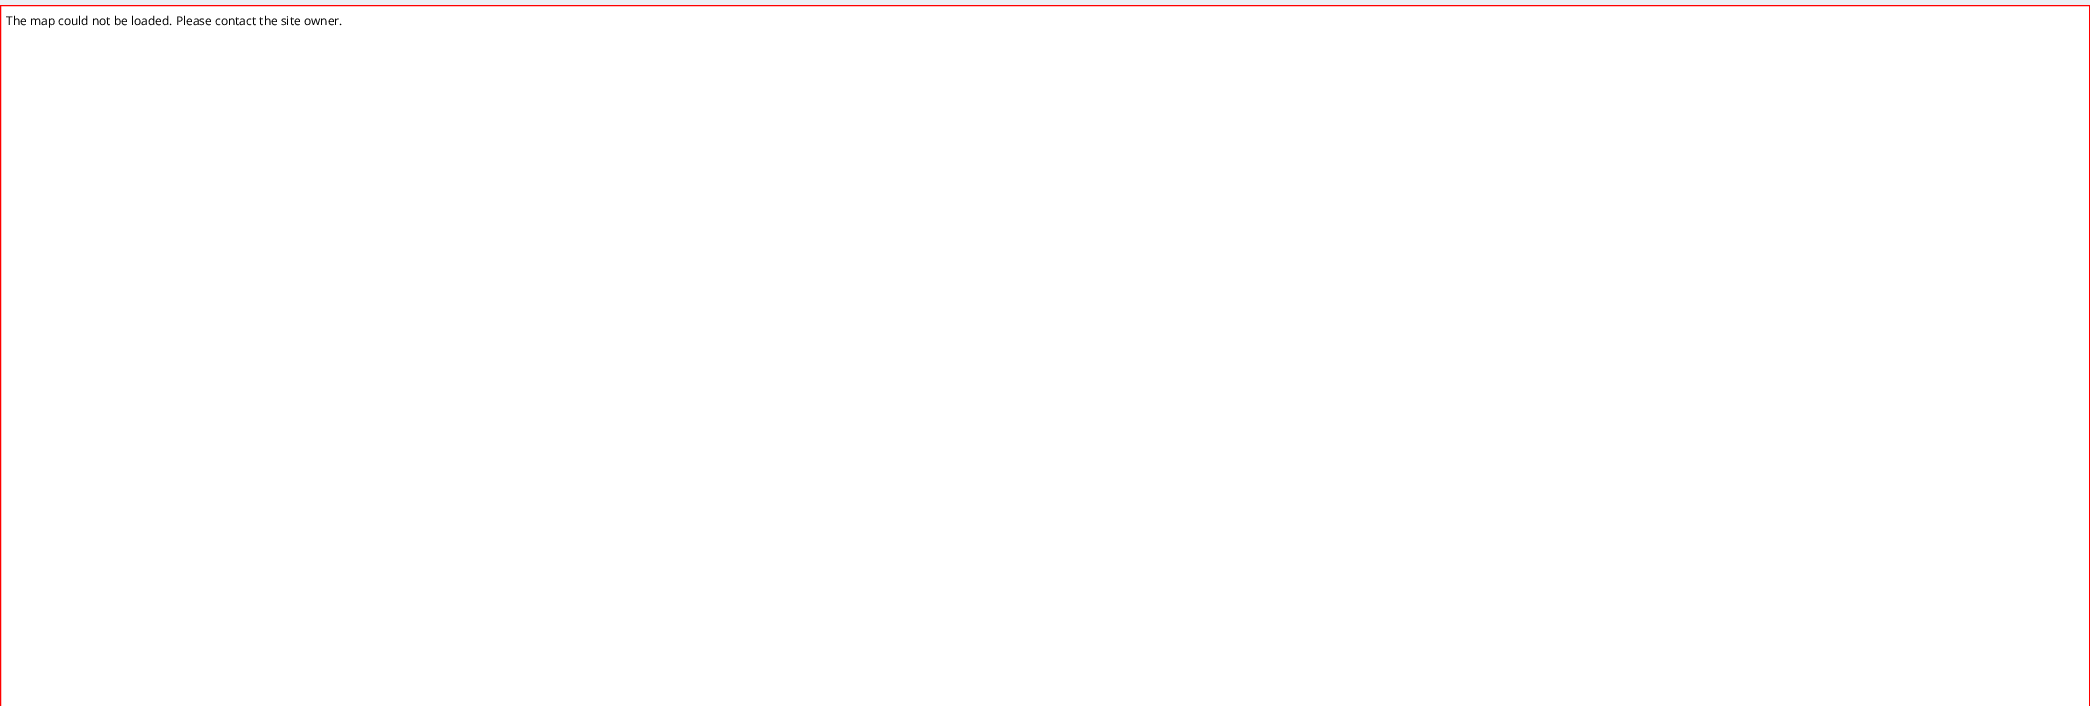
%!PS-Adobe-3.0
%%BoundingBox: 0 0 2090 706
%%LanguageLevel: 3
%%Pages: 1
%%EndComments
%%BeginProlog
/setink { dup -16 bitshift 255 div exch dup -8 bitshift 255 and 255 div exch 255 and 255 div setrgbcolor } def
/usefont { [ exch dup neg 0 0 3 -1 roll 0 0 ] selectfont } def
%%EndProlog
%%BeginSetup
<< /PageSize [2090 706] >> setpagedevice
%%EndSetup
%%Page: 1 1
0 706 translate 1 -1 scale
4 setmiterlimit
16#ECF0F5 setink
0 0 2090 706 rectfill
16#FFFFFF setink
0.5 5.5 moveto 2089.5 5.5 lineto 2089.5 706.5 lineto 0.5 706.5 lineto closepath gsave fill grestore
16#FF0000 setink
stroke
/OpenSans-Regular 12 usefont
16#000000 setink
6 25 moveto (The map could not be loaded. Please contact the site owner.) show
showpage
%%EOF
